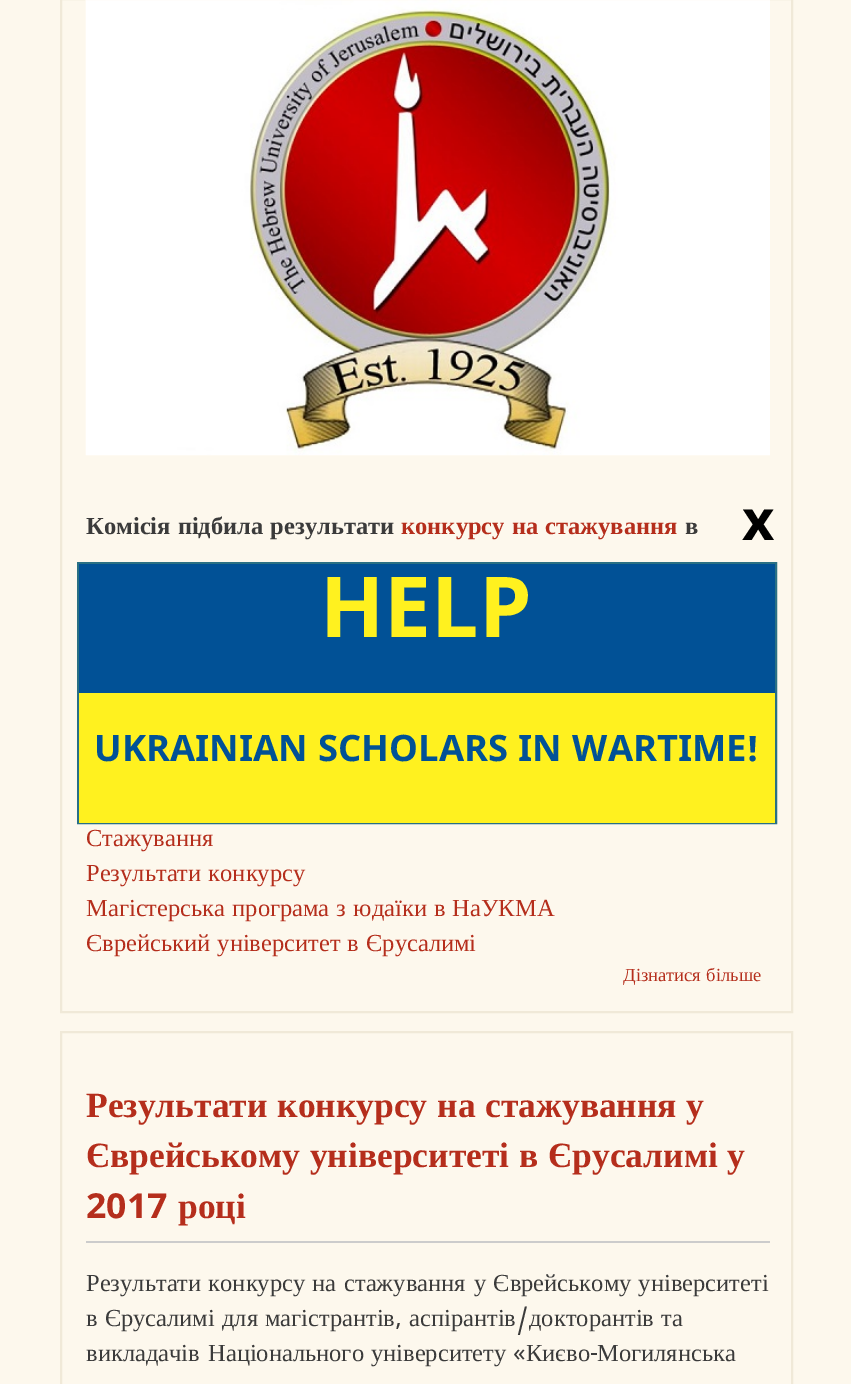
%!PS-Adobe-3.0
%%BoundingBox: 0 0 851 1384
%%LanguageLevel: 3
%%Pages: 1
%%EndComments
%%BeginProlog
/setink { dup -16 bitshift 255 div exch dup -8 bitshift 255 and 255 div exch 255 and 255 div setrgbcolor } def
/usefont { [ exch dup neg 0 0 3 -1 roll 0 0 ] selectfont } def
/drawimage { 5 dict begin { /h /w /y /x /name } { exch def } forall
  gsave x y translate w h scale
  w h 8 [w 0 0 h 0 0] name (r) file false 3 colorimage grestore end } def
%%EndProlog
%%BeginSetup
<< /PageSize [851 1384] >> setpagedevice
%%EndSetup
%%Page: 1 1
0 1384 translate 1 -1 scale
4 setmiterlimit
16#FDF8ED setink
0 0 851 1384 rectfill
16#F0E9D8 setink
2 setlinewidth
61 -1 731 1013 rectstroke
16#297084 setink
78 563 698 260 rectstroke
/NotoSansKannada-Bold 56 usefont
16#000000 setink
742 540 moveto (x) show
16#015196 setink
79 564 696 129 rectfill
/NotoSansKannada-Bold 84 usefont
16#FFF11F setink
320 637 moveto (HELP) show
79 693 696 130 rectfill
/NotoSansKannada-Bold 36.4 usefont
16#015196 setink
94 761 moveto (UKRAINIAN SCHOLARS IN WARTIME!) show
(img1.raw) 85 0 685 456 drawimage
/LiberationSerif-Bold 24.5 usefont
16#3B3B3B setink
86 534 moveto 1 0 32 (Комісія підбила результати) widthshow
16#B52E1C setink
401 534 moveto 1 0 32 (конкурсу на стажування) widthshow
16#3B3B3B setink
685 534 moveto (в) show
/LiberationSerif-Regular 24.5 usefont
16#B52E1C setink
86 846 moveto (Стажування) show
86 881 moveto 1 0 32 (Результати конкурсу) widthshow
86 916 moveto 1 0 32 (Магістерська програма з юдаїки в НаУКМА) widthshow
86 951 moveto 1 0 32 (Єврейський університет в Єрусалимі) widthshow
/LiberationSerif-Regular 18.5 usefont
623 981 moveto 1 0 32 (Дізнатися більше) widthshow
16#F0E9D8 setink
61 1032 731 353 rectstroke
16#CCCCCC setink
86 1241 684 2 rectfill
/LiberationSerif-Bold 35.5 usefont
16#B52E1C setink
86 1117 moveto 1 0 32 (Результати конкурсу на стажування у) widthshow
86 1167 moveto 1 0 32 (Єврейському університеті в Єрусалимі у) widthshow
/NotoSansKannada-Bold 35.5 usefont
86 1218 moveto (2017) show
/LiberationSerif-Bold 35.5 usefont
178 1218 moveto (році) show
/LiberationSerif-Regular 24.5 usefont
16#3B3B3B setink
86 1291 moveto 1 0 32 (Результати конкурсу на) widthshow
344 1291 moveto (стажування) show
474 1291 moveto 1 0 32 (у Єврейському університеті) widthshow
86 1326 moveto 1 0 32 (в Єрусалимі для магістрантів) widthshow
/NotoSansKannada-Regular 24.5 usefont
395 1326 moveto (,) show
/LiberationSerif-Regular 24.5 usefont
409 1326 moveto (аспірантів) show
/NotoSansKannada-Regular 24.5 usefont
516 1326 moveto (/) show
/LiberationSerif-Regular 24.5 usefont
529 1326 moveto 1 0 32 (докторантів та) widthshow
86 1361 moveto (викладачів) show
208 1361 moveto 1 0 32 (Національного університету) widthshow
/NotoSansKannada-Regular 24.5 usefont
513 1361 moveto («) show
/LiberationSerif-Regular 24.5 usefont
526 1361 moveto (Києво) show
/NotoSansKannada-Regular 24.5 usefont
590 1361 moveto (-) show
/LiberationSerif-Regular 24.5 usefont
597 1361 moveto (Могилянська) show
showpage
%%EOF
